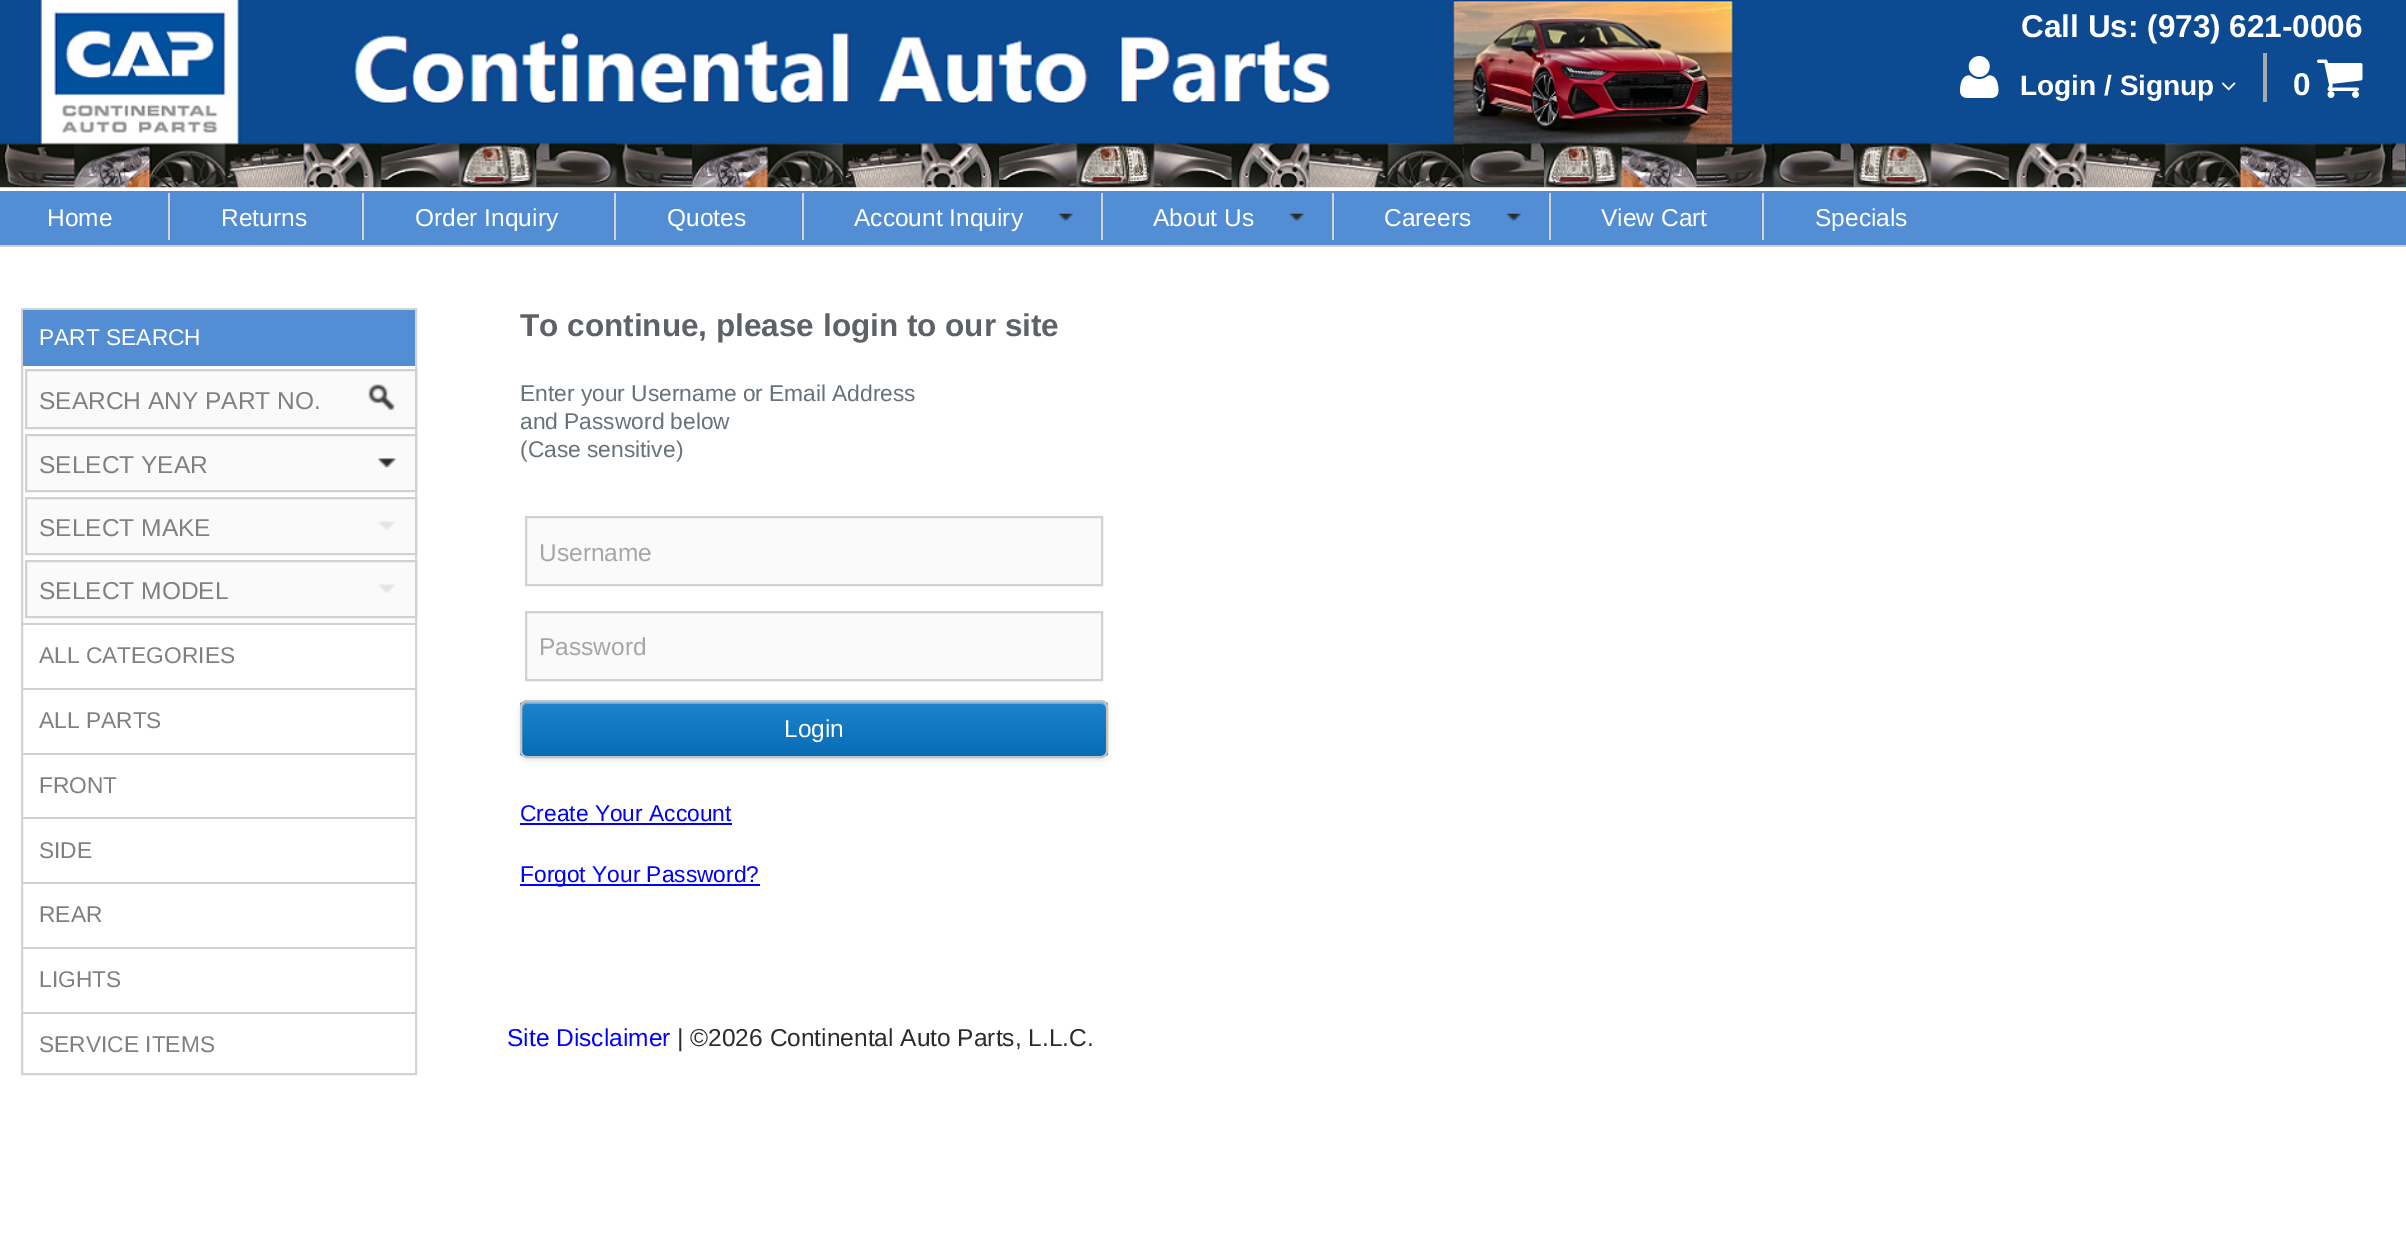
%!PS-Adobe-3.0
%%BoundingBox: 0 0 2406 1236
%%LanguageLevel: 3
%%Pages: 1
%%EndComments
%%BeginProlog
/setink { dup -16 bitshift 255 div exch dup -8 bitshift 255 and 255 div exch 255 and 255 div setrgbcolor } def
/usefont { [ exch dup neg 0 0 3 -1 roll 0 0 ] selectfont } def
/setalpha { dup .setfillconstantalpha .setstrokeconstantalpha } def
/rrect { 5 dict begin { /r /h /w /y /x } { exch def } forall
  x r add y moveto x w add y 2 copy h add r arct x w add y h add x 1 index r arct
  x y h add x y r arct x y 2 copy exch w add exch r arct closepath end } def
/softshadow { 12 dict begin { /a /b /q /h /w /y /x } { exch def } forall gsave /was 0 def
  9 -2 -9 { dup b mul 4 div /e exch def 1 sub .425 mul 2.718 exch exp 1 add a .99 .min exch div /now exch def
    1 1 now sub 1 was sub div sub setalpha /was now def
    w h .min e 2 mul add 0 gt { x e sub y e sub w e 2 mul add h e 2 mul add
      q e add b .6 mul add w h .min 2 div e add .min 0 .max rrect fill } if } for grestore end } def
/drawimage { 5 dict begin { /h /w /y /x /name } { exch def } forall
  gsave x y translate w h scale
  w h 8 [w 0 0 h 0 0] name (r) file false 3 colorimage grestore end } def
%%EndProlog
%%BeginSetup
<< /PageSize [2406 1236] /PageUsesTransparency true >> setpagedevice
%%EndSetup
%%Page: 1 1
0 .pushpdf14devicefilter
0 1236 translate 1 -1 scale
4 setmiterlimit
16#FFFFFF setink
0 0 2406 1236 rectfill
16#D1D1D1 setink
0 245 2406 2 rectfill
(img1.raw) 0 0 2406 188 drawimage
/LiberationSans-Bold 31.5 usefont
16#FFFFFF setink
2021 37 moveto (Call Us: \(973\) 621-0006) show
(img2.raw) 1960 56 39 42 drawimage
/LiberationSans-Bold 28 usefont
2020 95 moveto (Login / Signup) show
(img3.raw) 2221 82 15 9 drawimage
16#A9A9A9 setink
2263 53 4 49 rectfill
/LiberationSans-Bold 31.5 usefont
16#FFFFFF setink
2293 95 moveto (0) show
(img4.raw) 2317 59 46 39 drawimage
16#538ED5 setink
0 191 2406 54 rectfill
/LiberationSans-Regular 24.5 usefont
16#FFFFFF setink
47 226 moveto (Home) show
16#D1D1D1 setink
168 193 2 47 rectfill
16#FFFFFF setink
221 226 moveto (Returns) show
16#D1D1D1 setink
362 193 2 47 rectfill
16#FFFFFF setink
415 226 moveto (Order Inquiry) show
16#D1D1D1 setink
614 193 2 47 rectfill
16#FFFFFF setink
667 226 moveto (Quotes) show
16#D1D1D1 setink
802 193 2 47 rectfill
16#FFFFFF setink
854 226 moveto (Account Inquiry) show
(img5.raw) 1058 213 15 8 drawimage
16#D1D1D1 setink
1101 193 2 47 rectfill
16#FFFFFF setink
1153 226 moveto (About Us) show
(img5.raw) 1289 213 15 8 drawimage
16#D1D1D1 setink
1332 193 2 47 rectfill
16#FFFFFF setink
1384 226 moveto (Careers) show
(img5.raw) 1506 213 15 8 drawimage
16#D1D1D1 setink
1549 193 2 47 rectfill
16#FFFFFF setink
1601 226 moveto (View Cart) show
16#D1D1D1 setink
1762 193 2 47 rectfill
16#FFFFFF setink
1815 226 moveto (Specials) show
16#D3D3D3 setink
2 setlinewidth
22 309 394 765 rectstroke
16#538ED5 setink
23 310 392 56 rectfill
/LiberationSans-Regular 22.75 usefont
16#FFFFFF setink
39 345 moveto (PART SEARCH) show
16#FAFAFA setink
26 370 moveto 416 370 lineto 416 428 lineto 26 428 lineto closepath gsave fill grestore
16#D1D1D1 setink
stroke
/LiberationSans-Regular 24.5 usefont
16#808080 setink
39 409 moveto (SEARCH ANY PART NO.) show
(img6.raw) 368 384 27 27 drawimage
16#FAFAFA setink
26 435 moveto 416 435 lineto 416 491 lineto 26 491 lineto closepath gsave fill grestore
16#D1D1D1 setink
stroke
16#808080 setink
39 473 moveto (SELECT YEAR) show
(img7.raw) 377 458 19 10 drawimage
16#FAFAFA setink
26 498 moveto 416 498 lineto 416 554 lineto 26 554 lineto closepath gsave fill grestore
16#D1D1D1 setink
stroke
16#808080 setink
39 536 moveto (SELECT MAKE) show
(img8.raw) 379 521 16 9 drawimage
16#FAFAFA setink
26 561 moveto 416 561 lineto 416 617 lineto 26 617 lineto closepath gsave fill grestore
16#D1D1D1 setink
stroke
16#808080 setink
39 599 moveto (SELECT MODEL) show
(img8.raw) 379 584 16 9 drawimage
16#D1D1D1 setink
23 623 392 2 rectfill
/LiberationSans-Regular 22.75 usefont
16#808080 setink
39 663 moveto (ALL CATEGORIES) show
16#D1D1D1 setink
23 688 392 2 rectfill
16#808080 setink
39 728 moveto (ALL PARTS) show
16#D1D1D1 setink
23 753 392 2 rectfill
16#808080 setink
39 793 moveto (FRONT) show
16#D1D1D1 setink
23 817 392 2 rectfill
16#808080 setink
39 858 moveto (SIDE) show
16#D1D1D1 setink
23 882 392 2 rectfill
16#808080 setink
39 922 moveto (REAR) show
16#D1D1D1 setink
23 947 392 2 rectfill
16#808080 setink
39 987 moveto (LIGHTS) show
16#D1D1D1 setink
23 1012 392 2 rectfill
16#808080 setink
39 1052 moveto (SERVICE ITEMS) show
/LiberationSans-Bold 31.5 usefont
16#5E6165 setink
520 336 moveto (To continue, please login to our site) show
/LiberationSans-Regular 22.75 usefont
16#677279 setink
[
    [(Enter your Username or Email Address) 520 401]
    [(and Password below) 520 429]
    [(\(Case sensitive\)) 520 457]
] { aload pop moveto show } forall
16#FAFAFA setink
526 517 moveto 1102 517 lineto 1102 585 lineto 526 585 lineto closepath gsave fill grestore
16#D1D1D1 setink
stroke
/LiberationSans-Regular 24.5 usefont
16#A6A6A6 setink
539 561 moveto (Username) show
16#FAFAFA setink
526 612 moveto 1102 612 lineto 1102 680 lineto 526 680 lineto closepath gsave fill grestore
16#D1D1D1 setink
stroke
16#A6A6A6 setink
539 655 moveto (Password) show
16#000000 setink
520 702 588 58 7 2.5 0.1 softshadow
gsave
520 700 588 58 7 rrect clip newpath
gsave 520 702 moveto 1108 702 lineto 1108 756 lineto 520 756 lineto closepath clip newpath
<< /ShadingType 2 /ColorSpace /DeviceRGB /Coords [814 702 814 756] /Extend [true true] /Function << /FunctionType 2 /Domain [0 1] /C0 [0.114 0.522 0.804] /C1 [0.031 0.424 0.702] /N 1 >> >> shfill grestore
grestore
16#6CAFDE setink
527 704 moveto 1101 704 lineto 1104 704 1106 706 1106 709 curveto 1106 707 lineto 1106 704 1104 702 1101 702 curveto 527 702 lineto 524 702 522 704 522 707 curveto 522 709 lineto 522 706 524 704 527 704 curveto closepath fill
16#C3C3C3 setink
521 701 586 56 6 rrect stroke
16#FFFFFF setink
784 737 moveto (Login) show
/LiberationSans-Regular 22.75 usefont
16#0000FF setink
520 821 moveto (Create Your Account) show
520 823 212 2 rectfill
520 884 240 2 rectfill
520 882 moveto (Forgot Your Password?) show
/LiberationSans-Regular 24.5 usefont
507 1046 moveto (Site Disclaimer) show
16#2B2B2B setink
677 1046 moveto (| ©2026 Continental Auto Parts, L.L.C.) show
.poppdf14devicefilter showpage
%%EOF
